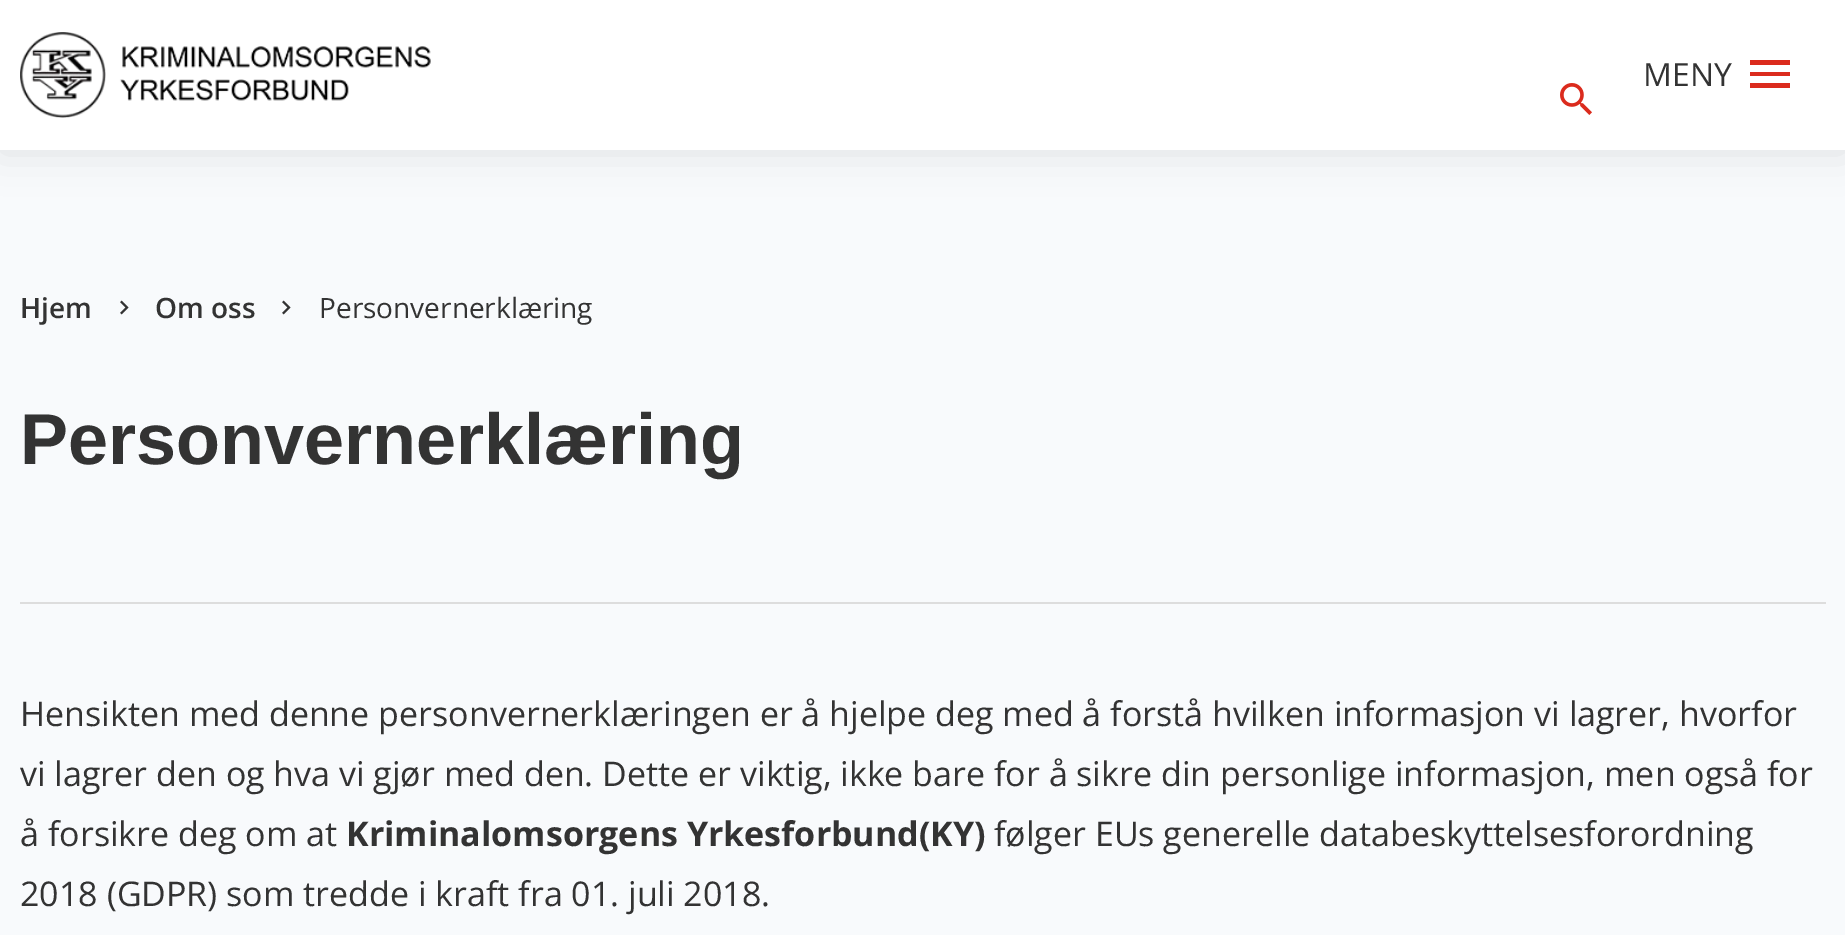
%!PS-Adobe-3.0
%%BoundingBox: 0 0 1845 935
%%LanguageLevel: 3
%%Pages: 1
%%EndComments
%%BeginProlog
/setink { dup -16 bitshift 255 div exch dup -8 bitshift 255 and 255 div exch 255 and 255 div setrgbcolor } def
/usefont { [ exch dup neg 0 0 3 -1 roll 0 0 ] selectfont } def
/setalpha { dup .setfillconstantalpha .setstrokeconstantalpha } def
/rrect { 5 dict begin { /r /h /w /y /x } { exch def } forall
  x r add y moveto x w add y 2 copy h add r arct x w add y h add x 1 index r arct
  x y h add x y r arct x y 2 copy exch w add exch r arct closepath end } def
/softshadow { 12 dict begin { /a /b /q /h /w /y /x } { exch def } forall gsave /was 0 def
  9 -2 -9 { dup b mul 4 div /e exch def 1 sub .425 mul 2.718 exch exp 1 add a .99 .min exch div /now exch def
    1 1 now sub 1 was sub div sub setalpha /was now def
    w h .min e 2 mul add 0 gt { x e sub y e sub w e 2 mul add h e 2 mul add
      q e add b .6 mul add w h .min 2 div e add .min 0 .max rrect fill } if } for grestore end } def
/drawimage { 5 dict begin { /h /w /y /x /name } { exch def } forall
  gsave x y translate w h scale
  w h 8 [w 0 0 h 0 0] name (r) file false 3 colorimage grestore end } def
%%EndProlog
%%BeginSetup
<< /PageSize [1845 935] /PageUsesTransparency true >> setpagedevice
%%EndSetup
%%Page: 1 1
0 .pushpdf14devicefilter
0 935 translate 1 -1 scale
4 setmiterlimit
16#F8FAFC setink
0 0 1845 935 rectfill
16#000000 setink
0 2 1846 150 0 20 0.1 softshadow
16#FFFFFF setink
0 0 1845 150 rectfill
(img1.raw) 20 32 411 86 drawimage
/OpenSans-Regular 32 usefont
16#333333 setink
1643 86 moveto (MENY) show
16#DB2B1D setink
1750 88 moveto 1750 83 lineto 1790 83 lineto 1790 88 lineto closepath 1750 76 moveto 1750 72 lineto 1790 72 lineto 1790 76 lineto closepath 1750 60 moveto 1790 60 lineto 1790 65 lineto 1750 65 lineto closepath fill
(img2.raw) 1560 83 32 32 drawimage
/OpenSans-SemiBold 28 usefont
16#333333 setink
20 318 moveto (Hjem) show
(img3.raw) 120 300 9 15 drawimage
155 318 moveto (Om oss) show
(img3.raw) 282 300 9 15 drawimage
/OpenSans-Regular 28 usefont
319 318 moveto (Personvernerklæring) show
/LiberationSans-Bold 72 usefont
20 464 moveto (Personvernerklæring) show
16#DDDDDD setink
20 602 1806 2 rectfill
/OpenSans-Regular 34 usefont
16#333333 setink
[
    [(Hensikten med denne personvernerklæringen er å hjelpe deg med å forstå hvilken informasjon vi lagrer, hvorfor) 20 726]
    [(vi lagrer den og hva vi gjør med den. Dette er viktig, ikke bare for å sikre din personlige informasjon, men også for) 20 786]
    [(å forsikre deg om at) 20 846]
] { aload pop moveto show } forall
/OpenSans-Bold 34 usefont
346 846 moveto (Kriminalomsorgens Yrkesforbund\(KY\)) show
/OpenSans-Regular 34 usefont
994 846 moveto (følger EUs generelle databeskyttelsesforordning) show
20 906 moveto (2018 \(GDPR\) som tredde i kraft fra 01. juli 2018.) show
.poppdf14devicefilter showpage
%%EOF
